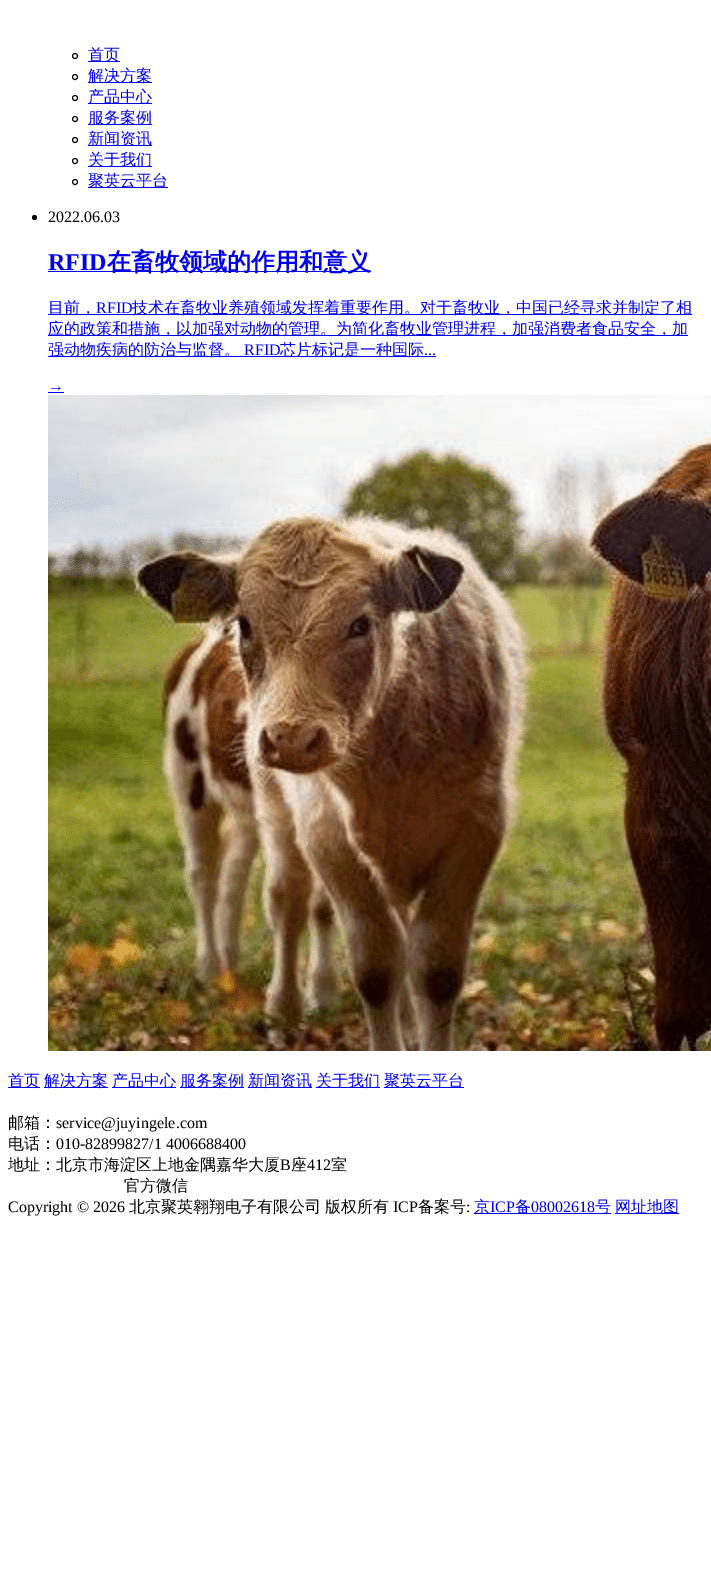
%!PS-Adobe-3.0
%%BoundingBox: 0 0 711 1584
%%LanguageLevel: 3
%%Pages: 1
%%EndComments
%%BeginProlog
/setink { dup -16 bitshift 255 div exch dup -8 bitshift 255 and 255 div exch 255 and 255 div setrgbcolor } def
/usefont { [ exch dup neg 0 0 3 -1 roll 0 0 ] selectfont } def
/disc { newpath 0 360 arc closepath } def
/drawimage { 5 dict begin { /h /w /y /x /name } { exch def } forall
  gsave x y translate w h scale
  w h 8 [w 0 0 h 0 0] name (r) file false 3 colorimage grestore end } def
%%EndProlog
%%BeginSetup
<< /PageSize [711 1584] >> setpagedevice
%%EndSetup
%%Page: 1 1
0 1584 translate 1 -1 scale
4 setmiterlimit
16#FFFFFF setink
0 0 711 1584 rectfill
16#000000 setink
75 56 2.5 disc stroke
16#0000EE setink
88 61 32 1 rectfill
/WenQuanYiZenHei-Medium 16 usefont
88 60 moveto (首页) show
16#000000 setink
75 77 2.5 disc stroke
16#0000EE setink
88 82 64 1 rectfill
88 81 moveto (解决方案) show
16#000000 setink
75 98 2.5 disc stroke
16#0000EE setink
88 103 64 1 rectfill
88 102 moveto (产品中心) show
16#000000 setink
75 119 2.5 disc stroke
16#0000EE setink
88 124 64 1 rectfill
88 123 moveto (服务案例) show
16#000000 setink
75 140 2.5 disc stroke
16#0000EE setink
88 145 64 1 rectfill
88 144 moveto (新闻资讯) show
16#000000 setink
75 161 2.5 disc stroke
16#0000EE setink
88 166 64 1 rectfill
88 165 moveto (关于我们) show
16#000000 setink
75 182 2.5 disc stroke
16#0000EE setink
88 187 80 1 rectfill
88 186 moveto (聚英云平台) show
16#000000 setink
34.5 217.5 2.5 disc fill
/LiberationSerif-Regular 16 usefont
48 222 moveto (2022.06.03) show
/LiberationSerif-Bold 24 usefont
16#0000EE setink
48 270 moveto (RFID) show
48 271 323 1 rectfill
/WenQuanYiZenHei-Bold 24 usefont
107 270 moveto (在畜牧领域的作用和意义) show
48 314 644 1 rectfill
/WenQuanYiZenHei-Medium 16 usefont
48 313 moveto (目前，) show
/LiberationSerif-Regular 16 usefont
96 313 moveto (RFID) show
/WenQuanYiZenHei-Medium 16 usefont
132 313 moveto (技术在畜牧业养殖领域发挥着重要作用。对于畜牧业，中国已经寻求并制定了相) show
48 335 640 1 rectfill
48 334 moveto (应的政策和措施，以加强对动物的管理。为简化畜牧业管理进程，加强消费者食品安全，加) show
48 356 388 1 rectfill
48 355 moveto (强动物疾病的防治与监督。) show
/LiberationSerif-Regular 16 usefont
244 355 moveto (RFID) show
/WenQuanYiZenHei-Medium 16 usefont
280 355 moveto (芯片标记是一种国际) show
/LiberationSerif-Regular 16 usefont
424 355 moveto (...) show
48 391 moveto (→) show
48 392 16 1 rectfill
(img1.raw) 48 395 663 656 drawimage
8 1087 32 1 rectfill
/WenQuanYiZenHei-Medium 16 usefont
8 1086 moveto (首页) show
44 1087 64 1 rectfill
44 1086 moveto (解决方案) show
112 1087 64 1 rectfill
112 1086 moveto (产品中心) show
180 1087 64 1 rectfill
180 1086 moveto (服务案例) show
248 1087 64 1 rectfill
248 1086 moveto (新闻资讯) show
316 1087 64 1 rectfill
316 1086 moveto (关于我们) show
384 1087 80 1 rectfill
384 1086 moveto (聚英云平台) show
16#000000 setink
8 1128 moveto (邮箱：) show
/LiberationSerif-Regular 16 usefont
56 1128 moveto (service@juyingele.com) show
/WenQuanYiZenHei-Medium 16 usefont
8 1149 moveto (电话：) show
/LiberationSerif-Regular 16 usefont
56 1149 moveto (010-82899827/1 4006688400) show
/WenQuanYiZenHei-Medium 16 usefont
8 1170 moveto (地址：北京市海淀区上地金隅嘉华大厦) show
/LiberationSerif-Regular 16 usefont
280 1170 moveto (B) show
/WenQuanYiZenHei-Medium 16 usefont
291 1170 moveto (座) show
/LiberationSerif-Regular 16 usefont
307 1170 moveto (412) show
/WenQuanYiZenHei-Medium 16 usefont
331 1170 moveto (室) show
124 1191 moveto (官方微信) show
/LiberationSerif-Regular 16 usefont
8 1212 moveto (Copyright © 2026) show
/WenQuanYiZenHei-Medium 16 usefont
129 1212 moveto (北京聚英翱翔电子有限公司) show
325 1212 moveto (版权所有) show
/LiberationSerif-Regular 16 usefont
393 1212 moveto (ICP) show
/WenQuanYiZenHei-Medium 16 usefont
418 1212 moveto (备案号) show
/LiberationSerif-Regular 16 usefont
466 1212 moveto (:) show
16#0000EE setink
474 1213 137 1 rectfill
/WenQuanYiZenHei-Medium 16 usefont
474 1212 moveto (京) show
/LiberationSerif-Regular 16 usefont
490 1212 moveto (ICP) show
/WenQuanYiZenHei-Medium 16 usefont
515 1212 moveto (备) show
/LiberationSerif-Regular 16 usefont
531 1212 moveto (08002618) show
/WenQuanYiZenHei-Medium 16 usefont
595 1212 moveto (号) show
615 1213 64 1 rectfill
615 1212 moveto (网址地图) show
showpage
%%EOF
